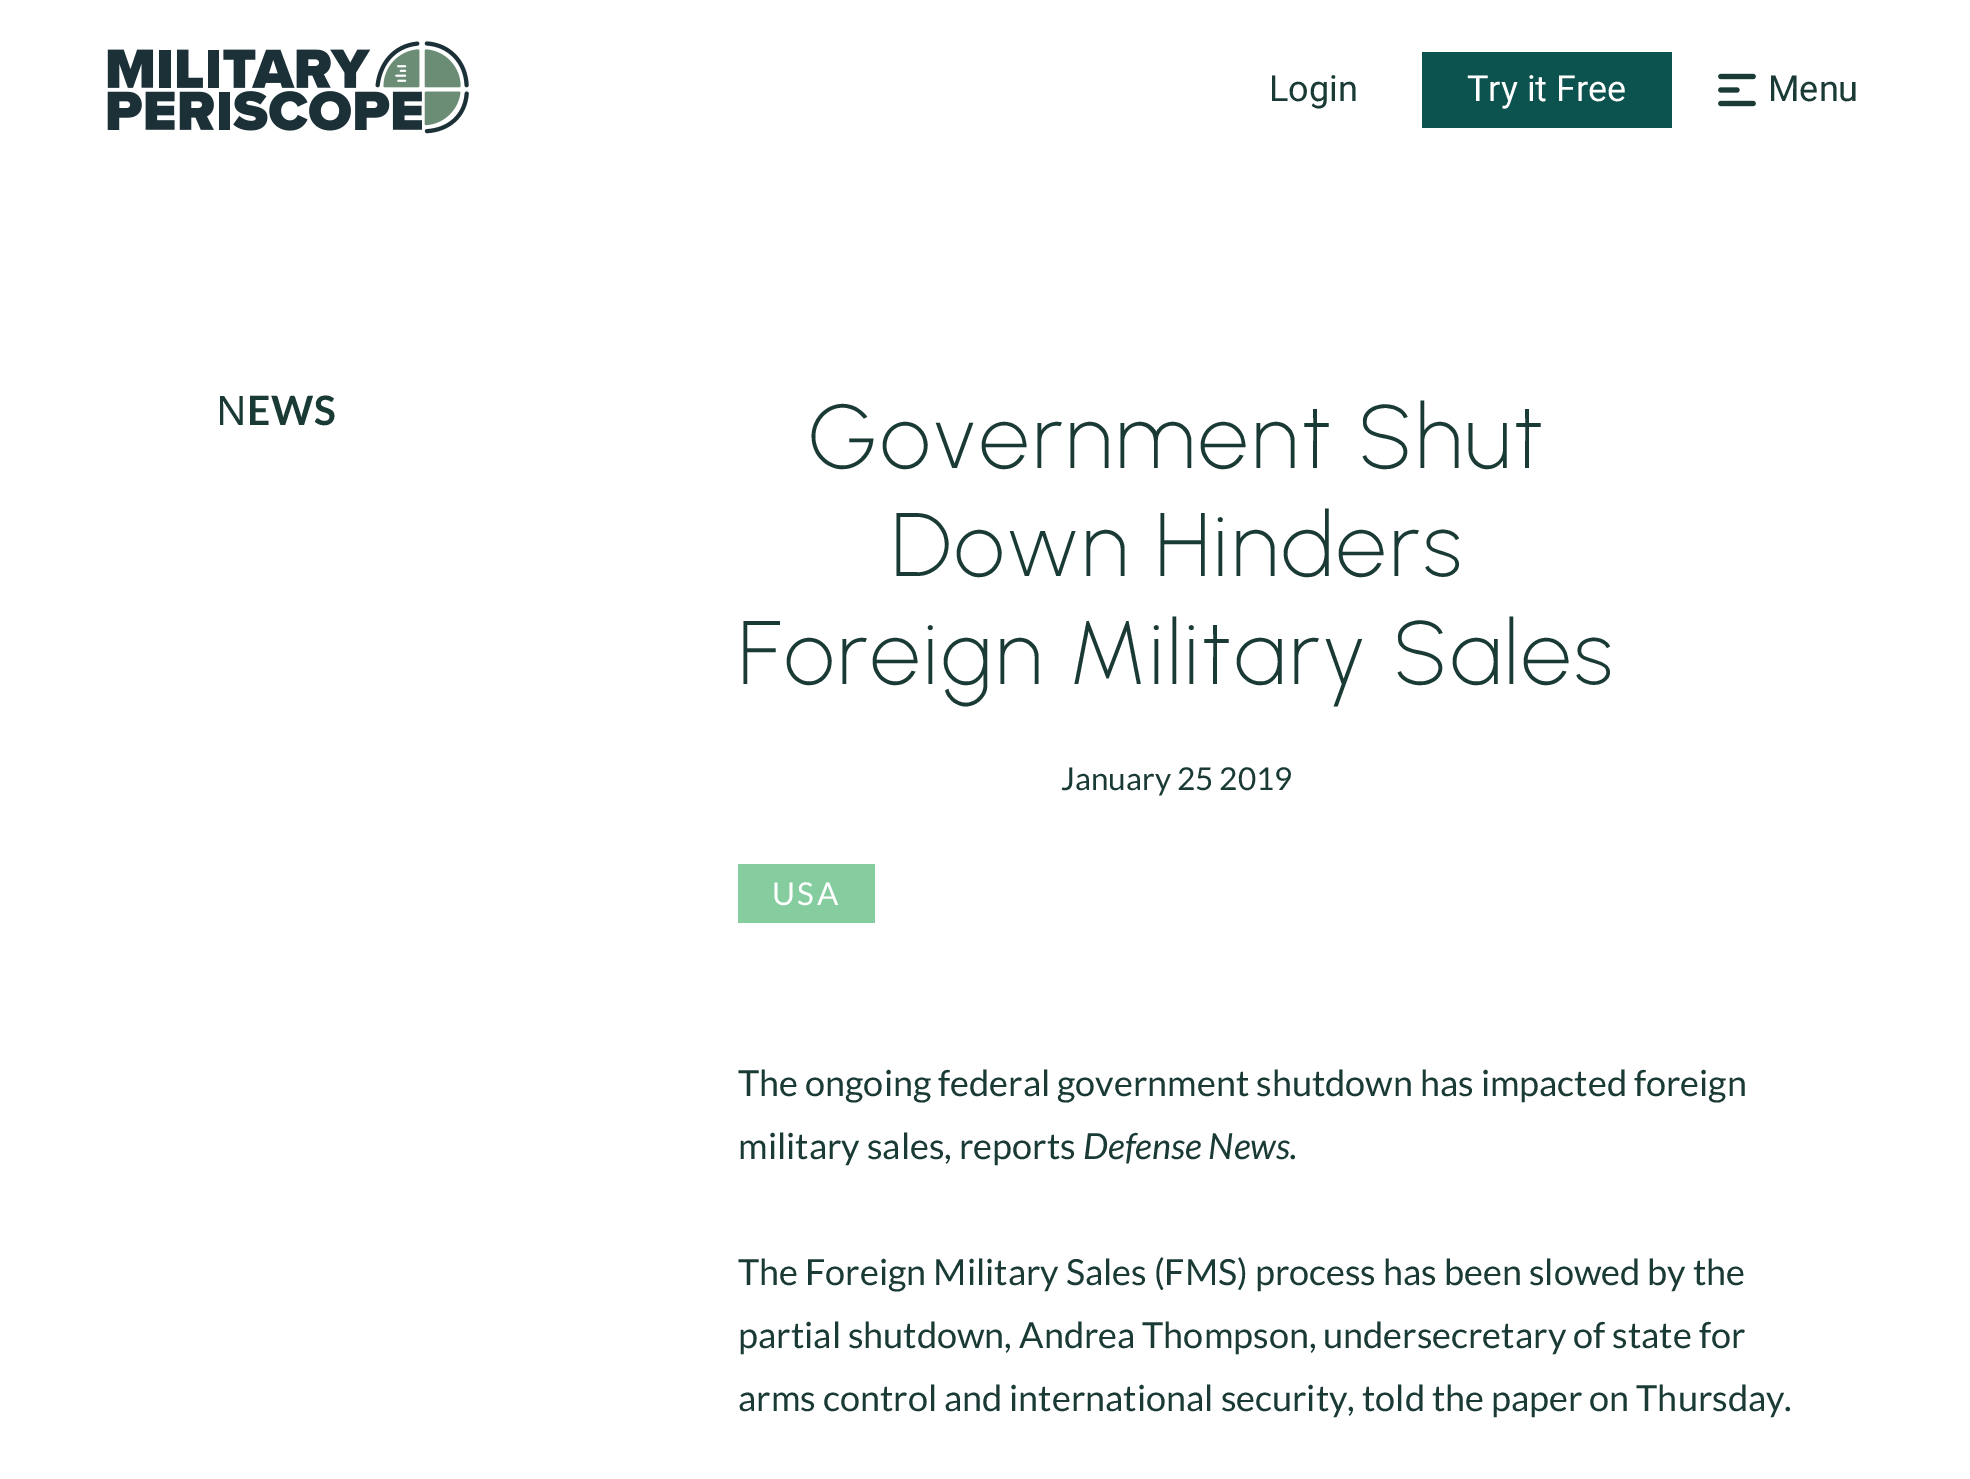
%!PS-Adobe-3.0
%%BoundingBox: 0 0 1970 1479
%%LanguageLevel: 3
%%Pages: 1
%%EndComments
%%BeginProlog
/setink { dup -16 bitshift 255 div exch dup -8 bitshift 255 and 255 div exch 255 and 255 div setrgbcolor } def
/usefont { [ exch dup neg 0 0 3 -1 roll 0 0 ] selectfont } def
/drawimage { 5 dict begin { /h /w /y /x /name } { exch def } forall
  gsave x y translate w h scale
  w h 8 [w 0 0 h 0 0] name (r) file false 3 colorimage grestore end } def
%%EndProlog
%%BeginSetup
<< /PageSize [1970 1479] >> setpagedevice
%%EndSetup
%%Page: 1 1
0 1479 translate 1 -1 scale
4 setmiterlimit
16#FFFFFF setink
0 0 1970 1479 rectfill
(img1.raw) 107 41 362 93 drawimage
/Roboto-Regular 36 usefont
16#1A3A35 setink
1269 101 moveto (Login) show
16#0C524E setink
1422 52 250 76 rectfill
16#FFFFFF setink
1467 101 moveto (Try it Free) show
(img2.raw) 1718 73 38 34 drawimage
16#1A3A35 setink
1768 101 moveto (Menu) show
/NotoSans-Regular 40.5 usefont
216 425 moveto 0.5 0 (N) ashow
/Lato-Bold 40.5 usefont
247 425 moveto 0.5 0 (EWS) ashow
/Urbanist-ExtraLight 90 usefont
808 468 moveto 2.7 0 (Government Shut) ashow
891 576 moveto 2.7 0 (Down Hinders) ashow
738 684 moveto 2.7 0 (Foreign Military Sales) ashow
/Lato-Regular 31.5 usefont
1061 790 moveto (January 25 2019) show
16#85CC9F setink
738 864 137 59 rectfill
16#FFFFFF setink
772 905 moveto 2.5 0 (USA) ashow
/Lato-Regular 36 usefont
16#1A3A35 setink
738 1096 moveto (The ongoing federal government shutdown has impacted foreign) show
738 1159 moveto (military sales, reports) show
/Lato-Italic 36 usefont
1083 1159 moveto (Defense News) show
/Lato-Regular 36 usefont
[
    [(.) 1289 1159]
    [(The Foreign Military Sales \(FMS\) process has been slowed by the) 738 1285]
    [(partial shutdown, Andrea Thompson, undersecretary of state for) 738 1348]
    [(arms control and international security, told the paper on Thursday.) 738 1411]
] { aload pop moveto show } forall
showpage
%%EOF
